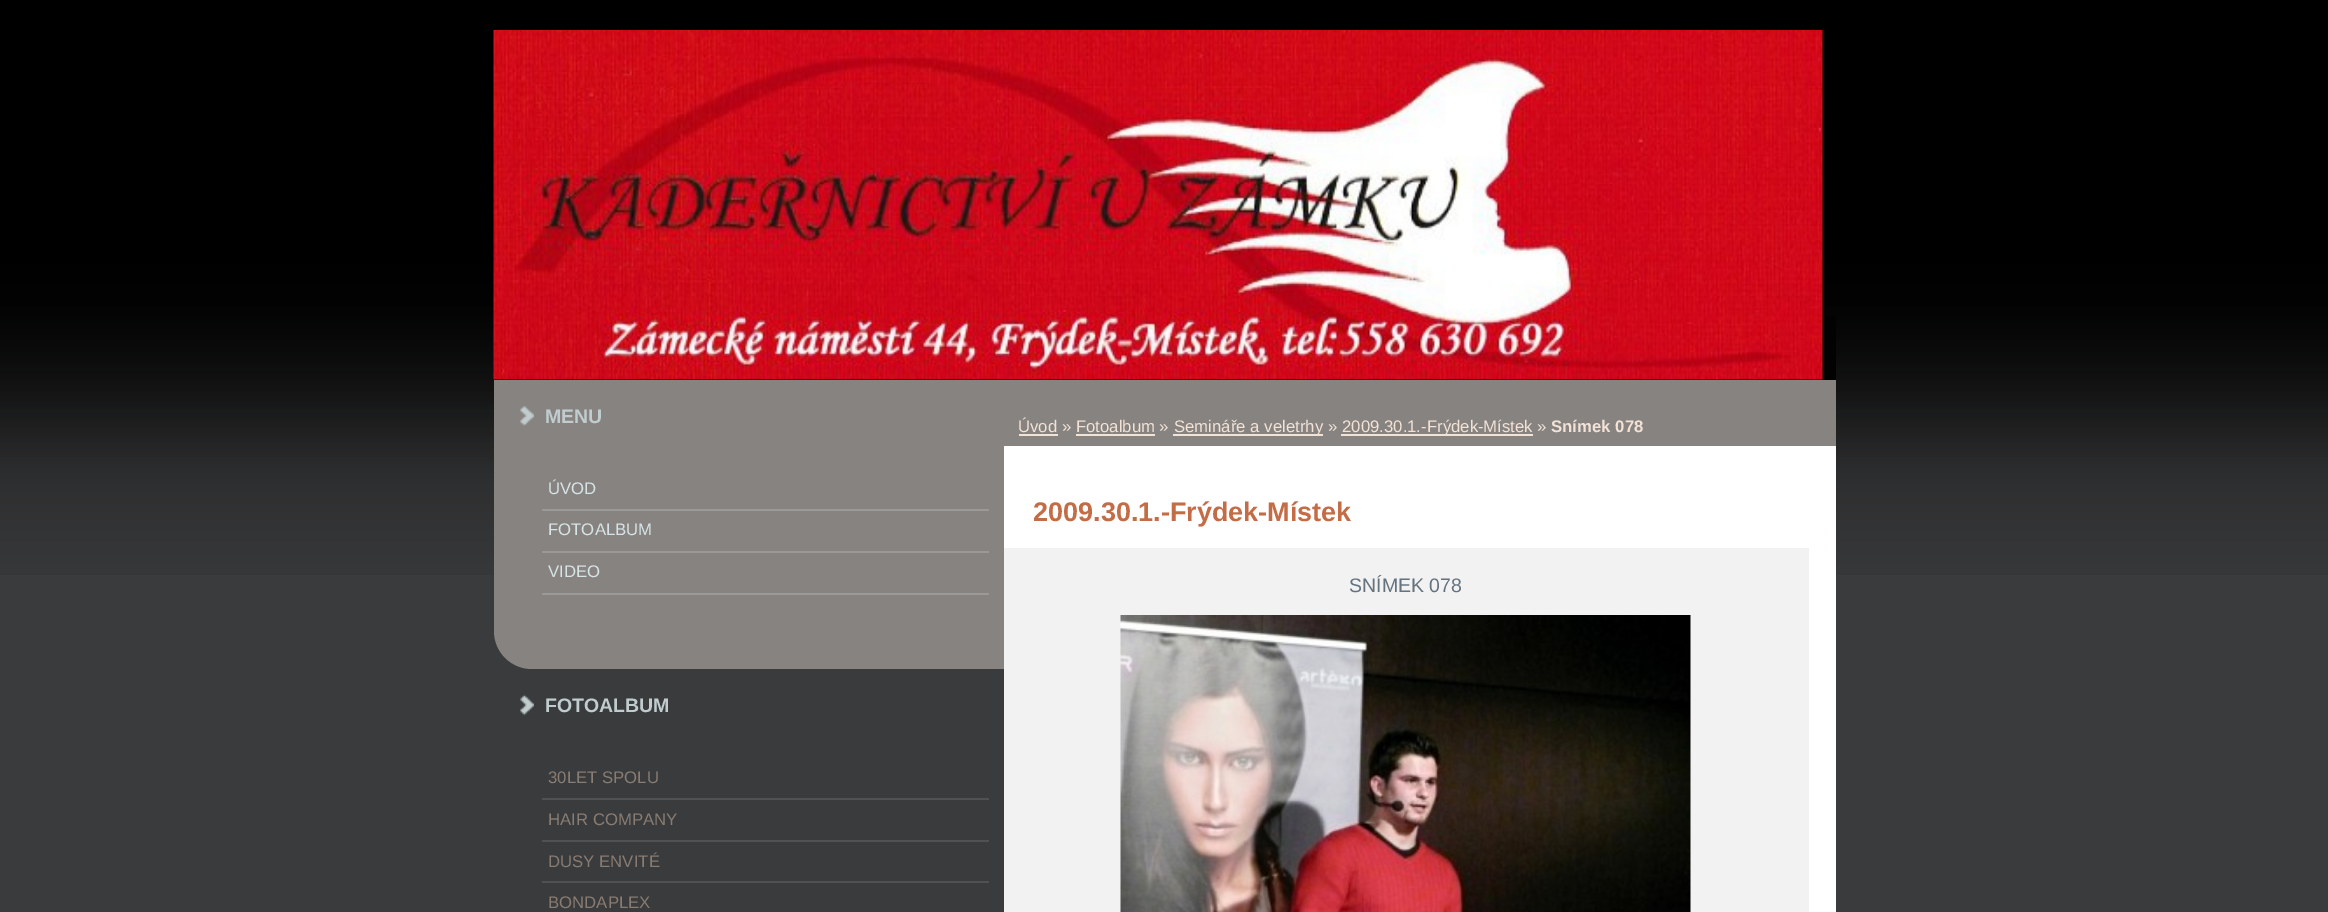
%!PS-Adobe-3.0
%%BoundingBox: 0 0 2328 912
%%LanguageLevel: 3
%%Pages: 1
%%EndComments
%%BeginProlog
/setink { dup -16 bitshift 255 div exch dup -8 bitshift 255 and 255 div exch 255 and 255 div setrgbcolor } def
/usefont { [ exch dup neg 0 0 3 -1 roll 0 0 ] selectfont } def
/drawimage { 5 dict begin { /h /w /y /x /name } { exch def } forall
  gsave x y translate w h scale
  w h 8 [w 0 0 h 0 0] name (r) file false 3 colorimage grestore end } def
%%EndProlog
%%BeginSetup
<< /PageSize [2328 912] >> setpagedevice
%%EndSetup
%%Page: 1 1
0 912 translate 1 -1 scale
4 setmiterlimit
16#393B3D setink
0 0 2328 912 rectfill
(img1.raw) 0 0 2328 575 drawimage
16#020202 setink
494 316 1342 64 rectfill
(img2.raw) 493 30 1330 350 drawimage
16#878381 setink
494 380 moveto 1004 380 lineto 1004 669 lineto 532 669 lineto 511 669 494 652 494 631 curveto closepath fill
(img3.raw) 520 406 14 20 drawimage
/LiberationSans-Bold 19.5 usefont
16#C0CCCE setink
545 423 moveto (MENU) show
16#9B9998 setink
542 509 447 2 rectfill
/LiberationSans-Regular 16.75 usefont
16#D7E5E7 setink
548 494 moveto (ÚVOD) show
16#9B9998 setink
542 551 447 2 rectfill
16#D7E5E7 setink
548 535 moveto (FOTOALBUM) show
16#9B9998 setink
542 593 447 2 rectfill
16#D7E5E7 setink
548 577 moveto (VIDEO) show
(img4.raw) 520 694 14 22 drawimage
/LiberationSans-Bold 19.5 usefont
16#C0CCCE setink
545 712 moveto (FOTOALBUM) show
16#4F5153 setink
542 798 447 2 rectfill
/LiberationSans-Regular 16.75 usefont
16#897C72 setink
548 783 moveto (30LET SPOLU) show
16#4F5153 setink
542 840 447 2 rectfill
16#897C72 setink
548 825 moveto (HAIR COMPANY) show
16#4F5153 setink
542 881 447 2 rectfill
16#897C72 setink
548 867 moveto (DUSY ENVITÉ) show
548 908 moveto (BONDAPLEX) show
16#FFFFFF setink
1004 446 832 466 rectfill
16#878381 setink
1004 380 832 66 rectfill
16#F2E3D6 setink
1018 432 moveto (Úvod » Fotoalbum ») show
1019 434 39 2 rectfill
1173 434 150 2 rectfill
1174 432 moveto (Semináře a veletrhy ») show
1341 434 192 2 rectfill
1342 432 moveto (2009.30.1.-Frýdek-Místek ») show
/LiberationSans-Bold 16.75 usefont
1551 432 moveto (Snímek 078) show
1076 434 79 2 rectfill
/LiberationSans-Bold 27 usefont
16#C46C45 setink
1033 521 moveto (2009.30.1.-Frýdek-Místek) show
16#F2F2F2 setink
1004 548 805 364 rectfill
/LiberationSans-Regular 19.5 usefont
16#65737F setink
1349 592 moveto (SNÍMEK 078) show
(img5.raw) 1120 615 571 297 drawimage
showpage
%%EOF
